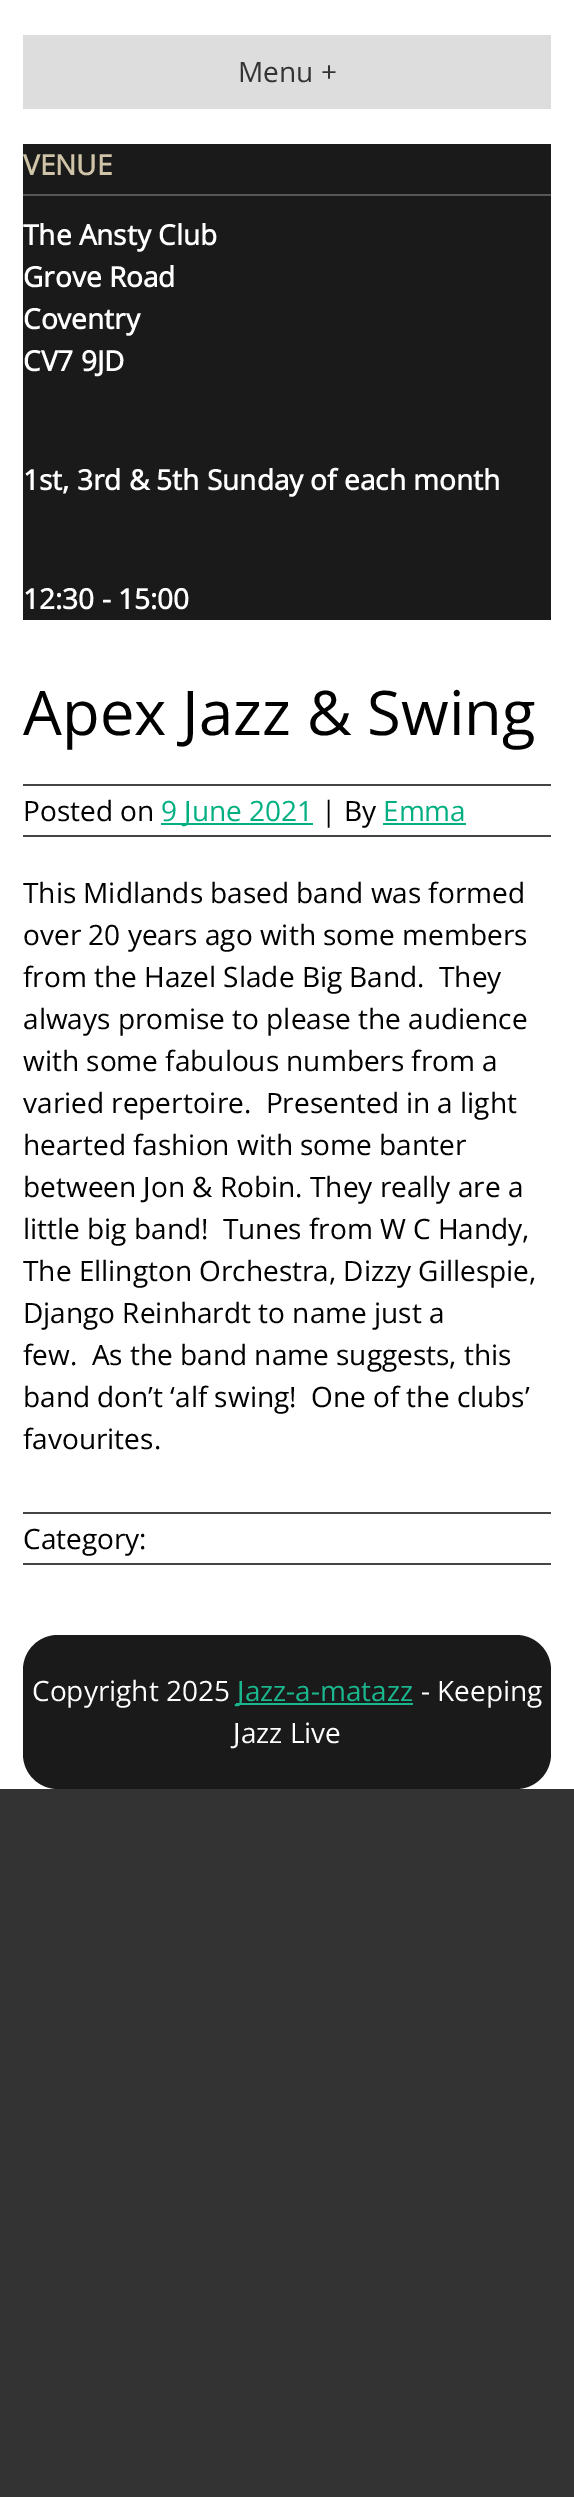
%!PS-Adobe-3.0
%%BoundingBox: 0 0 574 2497
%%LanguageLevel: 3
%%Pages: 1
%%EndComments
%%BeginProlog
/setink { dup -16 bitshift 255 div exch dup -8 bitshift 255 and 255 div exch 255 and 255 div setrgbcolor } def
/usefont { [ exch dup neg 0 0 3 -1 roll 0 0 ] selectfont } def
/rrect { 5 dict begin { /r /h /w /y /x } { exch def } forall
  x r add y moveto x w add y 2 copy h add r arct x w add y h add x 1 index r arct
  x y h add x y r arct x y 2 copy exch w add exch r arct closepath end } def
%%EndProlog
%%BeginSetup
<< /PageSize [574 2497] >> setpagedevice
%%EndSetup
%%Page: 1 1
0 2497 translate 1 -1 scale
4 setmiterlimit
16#333333 setink
0 0 574 2497 rectfill
16#FFFFFF setink
0 0 574 1789 rectfill
16#DDDDDD setink
23 35 528 74 rectfill
/OpenSans-Regular 28 usefont
16#333333 setink
238 82 moveto (Menu +) show
16#1A1A1A setink
23 144 528 476 rectfill
16#575757 setink
23 194 528 2 rectfill
/OpenSans-Bold 28 usefont
16#CFC4A7 setink
23 175 moveto (VENUE) show
16#FFFFFF setink
[
    [(The Ansty Club) 23 245]
    [(Grove Road) 23 287]
    [(Coventry) 23 329]
    [(CV7 9JD) 23 371]
    [(1st, 3rd & 5th Sunday of each month) 23 490]
    [(12:30 - 15:00) 23 609]
] { aload pop moveto show } forall
/OpenSans-Regular 61.5 usefont
16#000000 setink
23 735 moveto (Apex Jazz & Swing) show
16#444444 setink
23 784 528 2 rectfill
23 835 528 2 rectfill
/OpenSans-Regular 28 usefont
16#000000 setink
23 821 moveto (Posted on) show
16#01AF81 setink
161 823 152 2 rectfill
161 821 moveto (9 June 2021) show
16#000000 setink
321 821 moveto (| By) show
16#01AF81 setink
383 821 moveto (Emma) show
383 823 83 2 rectfill
16#000000 setink
[
    [(This Midlands based band was formed) 23 903]
    [(over 20 years ago with some members) 23 945]
    [(from the Hazel Slade Big Band.  They) 23 987]
    [(always promise to please the audience) 23 1029]
    [(with some fabulous numbers from a) 23 1071]
    [(varied repertoire.  Presented in a light) 23 1113]
    [(hearted fashion with some banter) 23 1155]
    [(between Jon & Robin. They really are a) 23 1197]
    [(little big band!  Tunes from W C Handy,) 23 1239]
    [(The Ellington Orchestra, Dizzy Gillespie,) 23 1281]
    [(Django Reinhardt to name just a) 23 1323]
    [(few.  As the band name suggests, this) 23 1365]
    [(band don’t ‘alf swing!  One of the clubs’) 23 1407]
    [(favourites.) 23 1449]
] { aload pop moveto show } forall
16#444444 setink
23 1512 528 2 rectfill
23 1563 528 2 rectfill
16#000000 setink
23 1549 moveto (Category:) show
16#1A1A1A setink
23 1635 528 154 35 rrect fill
16#FFFFFF setink
32 1701 moveto (Copyright 2025) show
16#1AB78E setink
236 1703 177 2 rectfill
237 1701 moveto (Jazz-a-matazz) show
16#FFFFFF setink
421 1701 moveto (- Keeping) show
233 1743 moveto (Jazz Live) show
showpage
%%EOF
